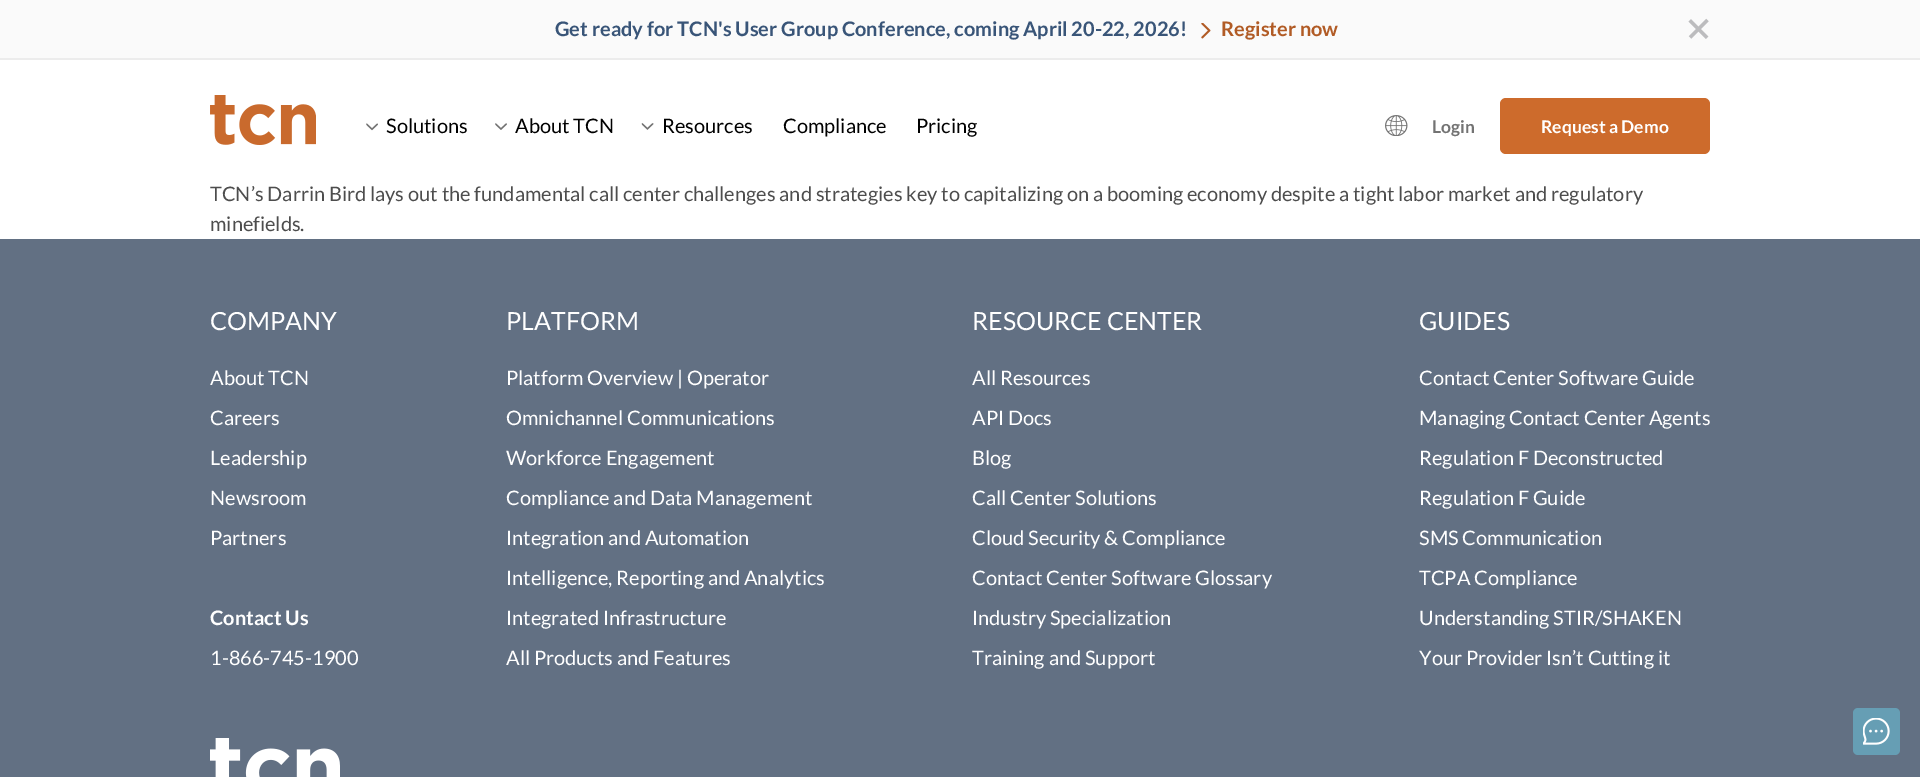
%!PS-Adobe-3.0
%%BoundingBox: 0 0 1920 777
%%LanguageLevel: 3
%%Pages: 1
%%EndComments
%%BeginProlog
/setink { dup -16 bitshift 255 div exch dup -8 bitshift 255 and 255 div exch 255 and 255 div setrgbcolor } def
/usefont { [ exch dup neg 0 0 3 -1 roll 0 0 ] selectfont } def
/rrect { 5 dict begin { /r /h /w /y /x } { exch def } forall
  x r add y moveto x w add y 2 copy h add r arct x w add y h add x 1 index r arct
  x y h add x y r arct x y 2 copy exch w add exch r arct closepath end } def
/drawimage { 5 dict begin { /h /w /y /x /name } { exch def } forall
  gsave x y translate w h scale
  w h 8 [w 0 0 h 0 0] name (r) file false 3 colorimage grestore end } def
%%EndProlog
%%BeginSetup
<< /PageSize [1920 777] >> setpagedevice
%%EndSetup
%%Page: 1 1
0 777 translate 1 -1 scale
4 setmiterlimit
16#FFFFFF setink
0 0 1920 777 rectfill
16#ECECEC setink
0 58 1920 2 rectfill
16#FAFAFA setink
0 0 1920 58 rectfill
/Lato-Bold 20 usefont
16#395578 setink
555 36 moveto (Get ready for TCN's User Group Conference, coming April 20-22, 2026!) show
(img1.raw) 1201 23 10 16 drawimage
16#B15B25 setink
1221 36 moveto (Register now) show
(img2.raw) 1688 18 21 21 drawimage
(img3.raw) 210 95 106 50 drawimage
(img4.raw) 366 123 12 8 drawimage
/Lato-Regular 20 usefont
16#000000 setink
386 133 moveto (Solutions) show
(img5.raw) 495 123 12 7 drawimage
515 133 moveto (About TCN) show
(img6.raw) 641 123 13 7 drawimage
[
    [(Resources) 662 133]
    [(Compliance) 783 133]
    [(Pricing) 916 133]
] { aload pop moveto show } forall
(img7.raw) 1385 115 23 21 drawimage
/Lato-Bold 17.5 usefont
16#737373 setink
1432 133 moveto (Login) show
16#CD6B2C setink
1500 98 210 56 6 rrect fill
16#FFFFFF setink
1541 133 moveto (Request a Demo) show
/Lato-Regular 20 usefont
16#4D4D4D setink
210 201 moveto (TCN’s Darrin Bird lays out the fundamental call center challenges and strategies key to capitalizing on a booming economy despite a tight labor market and regulatory) show
210 231 moveto (minefields.) show
16#627083 setink
0 239 1920 538 rectfill
/Lato-Regular 25 usefont
16#FFFFFF setink
210 330 moveto (COMPANY) show
/Lato-Regular 20 usefont
[
    [(About TCN) 210 385]
    [(Careers) 210 425]
    [(Leadership) 210 465]
    [(Newsroom) 210 505]
    [(Partners) 210 545]
] { aload pop moveto show } forall
/Lato-Bold 20 usefont
210 625 moveto (Contact Us) show
/Lato-Regular 20 usefont
210 665 moveto (1-866-745-1900) show
/Lato-Regular 25 usefont
506 330 moveto (PLATFORM) show
/Lato-Regular 20 usefont
[
    [(Platform Overview | Operator) 506 385]
    [(Omnichannel Communications) 506 425]
    [(Workforce Engagement) 506 465]
    [(Compliance and Data Management) 506 505]
    [(Integration and Automation) 506 545]
    [(Intelligence, Reporting and Analytics) 506 585]
    [(Integrated Infrastructure) 506 625]
    [(All Products and Features) 506 665]
] { aload pop moveto show } forall
/Lato-Regular 25 usefont
972 330 moveto (RESOURCE CENTER) show
/Lato-Regular 20 usefont
[
    [(All Resources) 972 385]
    [(API Docs) 972 425]
    [(Blog) 972 465]
    [(Call Center Solutions) 972 505]
    [(Cloud Security & Compliance) 972 545]
    [(Contact Center Software Glossary) 972 585]
    [(Industry Specialization) 972 625]
    [(Training and Support) 972 665]
] { aload pop moveto show } forall
/Lato-Regular 25 usefont
1419 330 moveto (GUIDES) show
/Lato-Regular 20 usefont
[
    [(Contact Center Software Guide) 1419 385]
    [(Managing Contact Center Agents) 1419 425]
    [(Regulation F Deconstructed) 1419 465]
    [(Regulation F Guide) 1419 505]
    [(SMS Communication) 1419 545]
    [(TCPA Compliance) 1419 585]
    [(Understanding STIR/SHAKEN) 1419 625]
    [(Your Provider Isn’t Cutting it) 1419 665]
] { aload pop moveto show } forall
(img8.raw) 210 738 130 39 drawimage
16#669EB4 setink
1853 708 47 47 5 rrect fill
(img9.raw) 1863 718 27 27 drawimage
showpage
%%EOF
